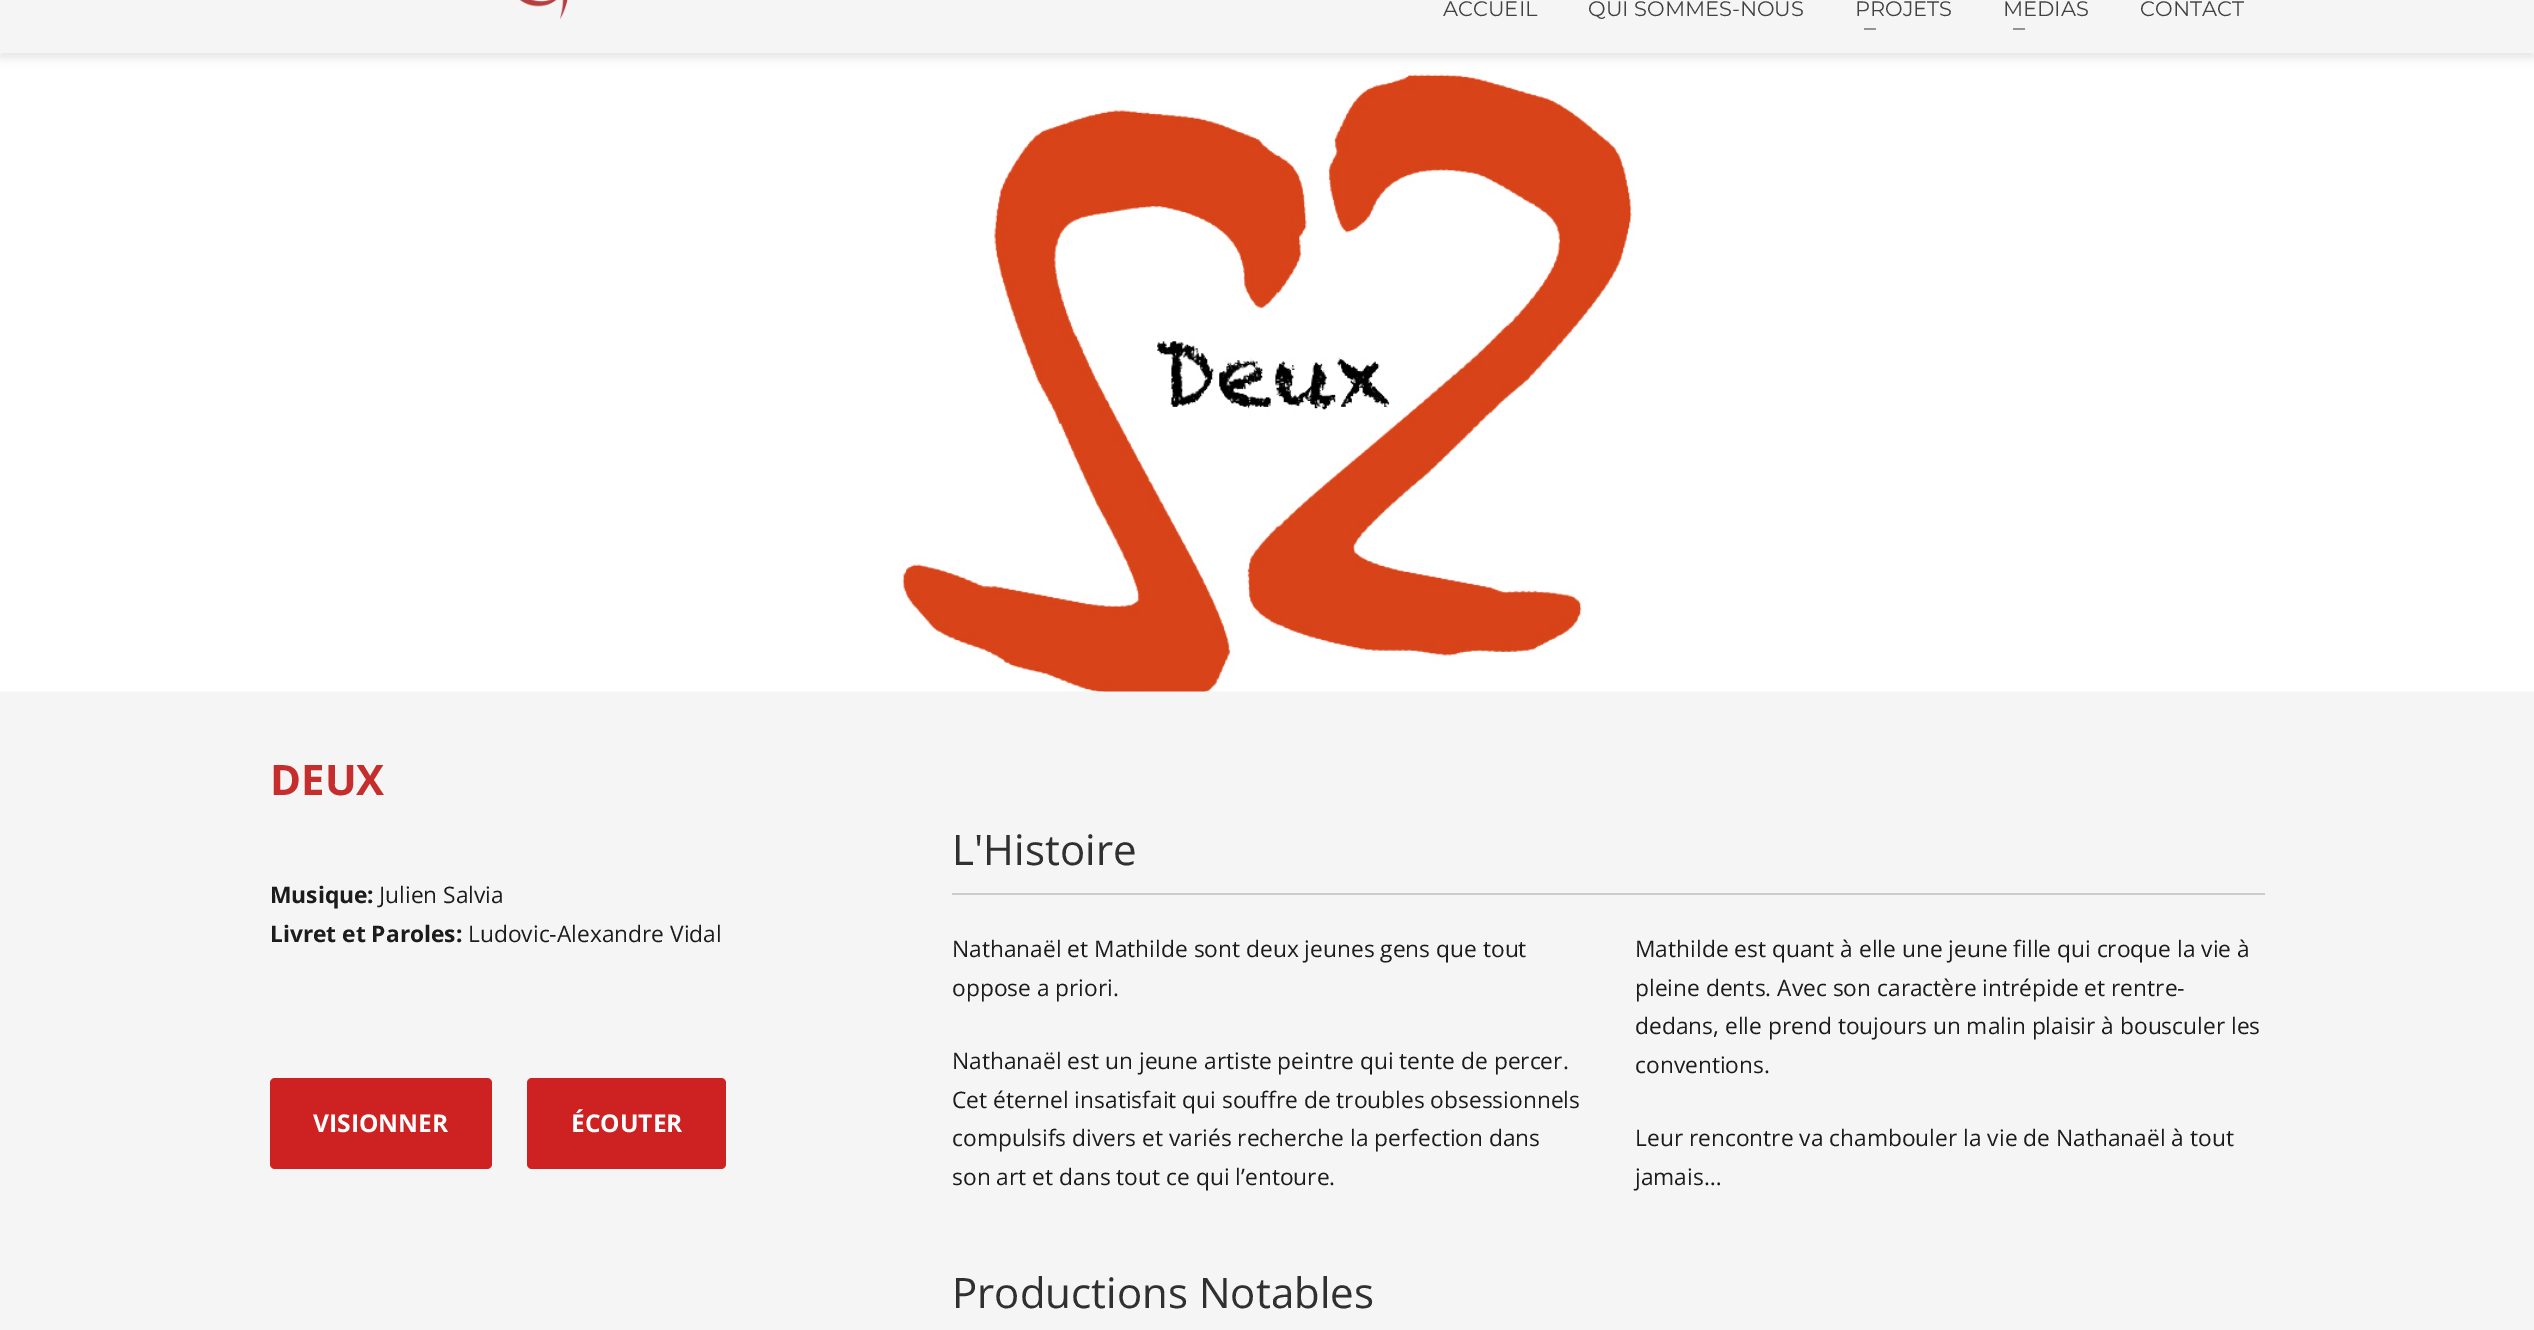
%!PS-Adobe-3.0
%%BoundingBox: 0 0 2534 1330
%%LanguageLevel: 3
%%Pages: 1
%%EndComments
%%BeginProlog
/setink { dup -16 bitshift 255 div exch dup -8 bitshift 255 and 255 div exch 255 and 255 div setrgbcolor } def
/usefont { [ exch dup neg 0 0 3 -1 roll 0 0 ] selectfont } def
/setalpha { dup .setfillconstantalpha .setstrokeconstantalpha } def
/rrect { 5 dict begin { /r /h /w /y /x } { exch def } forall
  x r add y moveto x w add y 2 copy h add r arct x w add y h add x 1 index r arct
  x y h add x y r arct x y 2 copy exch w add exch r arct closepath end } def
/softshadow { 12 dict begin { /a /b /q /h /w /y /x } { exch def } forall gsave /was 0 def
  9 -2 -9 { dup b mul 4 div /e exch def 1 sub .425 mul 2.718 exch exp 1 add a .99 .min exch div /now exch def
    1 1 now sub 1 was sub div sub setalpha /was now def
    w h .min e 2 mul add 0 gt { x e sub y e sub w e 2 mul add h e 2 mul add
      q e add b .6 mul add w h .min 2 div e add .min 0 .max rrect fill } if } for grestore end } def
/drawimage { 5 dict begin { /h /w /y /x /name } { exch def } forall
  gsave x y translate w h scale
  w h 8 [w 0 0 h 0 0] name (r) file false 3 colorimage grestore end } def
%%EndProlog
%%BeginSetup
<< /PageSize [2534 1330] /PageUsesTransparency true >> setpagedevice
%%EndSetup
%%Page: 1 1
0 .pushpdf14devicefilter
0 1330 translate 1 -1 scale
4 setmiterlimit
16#F5F5F5 setink
0 0 2534 1330 rectfill
(img2.raw) 0 53 2534 639 drawimage
16#000000 setink
0 -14 2534 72 0 4.5 0.1 softshadow
16#F5F5F5 setink
0 0 2534 53 rectfill
(img1.raw) 519 0 49 20 drawimage
/Montserrat-Regular 21 usefont
16#424242 setink
[
    [(ACCUEIL) 1443 16]
    [(QUI SOMMES-NOUS) 1588 16]
    [(PROJETS) 1855 16]
] { aload pop moveto show } forall
16#939393 setink
1864 28 12 2 rectfill
16#424242 setink
2003 16 moveto (MÉDIAS) show
16#939393 setink
2013 28 12 2 rectfill
16#424242 setink
2140 16 moveto (CONTACT) show
/OpenSans-Bold 42 usefont
16#C62D2D setink
270 795 moveto (DEUX) show
/OpenSans-Regular 42 usefont
16#303030 setink
952 865 moveto (L'Histoire) show
16#CCCCCC setink
952 893 1313 2 rectfill
/OpenSans-Bold 22.75 usefont
16#1C1C1C setink
270 903 moveto (Musique:) show
/OpenSans-Regular 22.75 usefont
379 903 moveto (Julien Salvia) show
/OpenSans-Bold 22.75 usefont
270 942 moveto (Livret et Paroles:) show
/OpenSans-Regular 22.75 usefont
468 942 moveto (Ludovic-Alexandre Vidal) show
16#CD2122 setink
270 1078 222 91 5 rrect fill
/OpenSans-Bold 24.5 usefont
16#FFFFFF setink
313 1132 moveto (VISIONNER) show
16#CD2122 setink
527 1078 199 91 5 rrect fill
16#FFFFFF setink
571 1132 moveto (ÉCOUTER) show
/OpenSans-Regular 22.75 usefont
16#1C1C1C setink
[
    [(Nathanaël et Mathilde sont deux jeunes gens que tout) 952 957]
    [(oppose a priori.) 952 996]
    [(Nathanaël est un jeune artiste peintre qui tente de percer.) 952 1069]
    [(Cet éternel insatisfait qui souffre de troubles obsessionnels) 952 1108]
    [(compulsifs divers et variés recherche la perfection dans) 952 1146]
    [(son art et dans tout ce qui l’entoure.) 952 1185]
    [(Mathilde est quant à elle une jeune fille qui croque la vie à) 1635 957]
    [(pleine dents. Avec son caractère intrépide et rentre-) 1635 996]
    [(dedans, elle prend toujours un malin plaisir à bousculer les) 1635 1034]
    [(conventions.) 1635 1073]
    [(Leur rencontre va chambouler la vie de Nathanaël à tout) 1635 1146]
    [(jamais…) 1635 1185]
] { aload pop moveto show } forall
/OpenSans-Regular 42 usefont
16#303030 setink
952 1308 moveto (Productions Notables) show
.poppdf14devicefilter showpage
%%EOF
